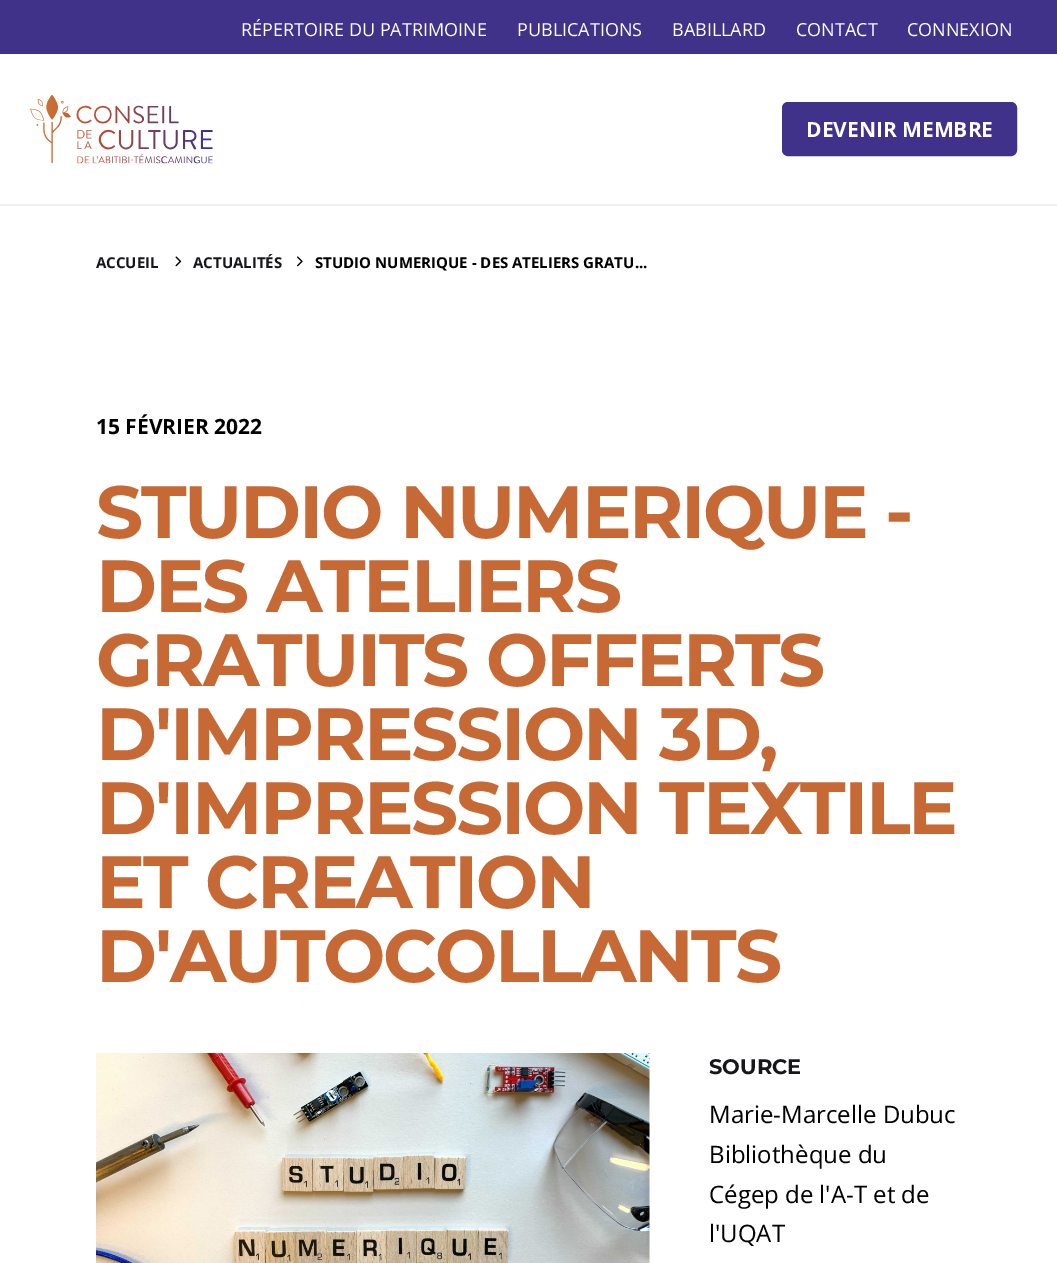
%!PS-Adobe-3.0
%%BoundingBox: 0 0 1057 1263
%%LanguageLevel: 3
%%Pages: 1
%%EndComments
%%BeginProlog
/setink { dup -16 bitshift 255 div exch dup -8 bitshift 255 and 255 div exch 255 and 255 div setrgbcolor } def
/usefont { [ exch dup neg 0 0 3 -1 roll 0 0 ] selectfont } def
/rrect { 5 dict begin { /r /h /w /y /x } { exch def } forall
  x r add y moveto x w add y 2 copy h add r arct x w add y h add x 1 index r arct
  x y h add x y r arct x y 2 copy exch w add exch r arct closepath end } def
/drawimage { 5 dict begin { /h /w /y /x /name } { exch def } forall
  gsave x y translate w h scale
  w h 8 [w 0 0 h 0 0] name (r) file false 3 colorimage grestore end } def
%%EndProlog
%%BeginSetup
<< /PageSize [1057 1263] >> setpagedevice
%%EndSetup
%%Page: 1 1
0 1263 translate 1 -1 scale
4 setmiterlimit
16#FFFFFF setink
0 0 1057 1263 rectfill
16#403289 setink
0 0 1057 54 rectfill
/OpenSans-Regular 18 usefont
16#FFFFFF setink
[
    [(RÉPERTOIRE DU PATRIMOINE) 241 36]
    [(PUBLICATIONS) 517 36]
    [(BABILLARD) 672 36]
    [(CONTACT) 796 36]
    [(CONNEXION) 907 36]
] { aload pop moveto show } forall
16#F0F0F0 setink
0 204 1057 2 rectfill
(img1.raw) 30 95 183 69 drawimage
16#40328A setink
783 103 233 52 5 rrect gsave fill grestore
2 setlinewidth
stroke
/OpenSans-Bold 21 usefont
16#FFFFFF setink
806 137 moveto (DEVENIR MEMBRE) show
/OpenSans-Bold 15 usefont
16#17161A setink
96 268 moveto (ACCUEIL) show
(img2.raw) 175 256 7 11 drawimage
193 268 moveto (ACTUALITÉS) show
(img3.raw) 297 256 6 11 drawimage
16#000000 setink
315 268 moveto (STUDIO NUMERIQUE - DES ATELIERS GRATU...) show
/OpenSans-Bold 21 usefont
96 434 moveto (15 FÉVRIER 2022) show
/Montserrat-Bold 73.9 usefont
16#C76934 setink
96 538 moveto -2.25 0 (STUDIO NUMERIQUE -) ashow
96 612 moveto -2.25 0 (DES ATELIERS) ashow
96 686 moveto -2.25 0 (GRATUITS OFFERTS) ashow
96 760 moveto -2.25 0 (D'IMPRESSION 3D,) ashow
96 834 moveto -2.25 0 (D'IMPRESSION TEXTILE) ashow
96 908 moveto -2.25 0 (ET CREATION) ashow
96 982 moveto -2.25 0 (D'AUTOCOLLANTS) ashow
(img4.raw) 96 1053 554 210 drawimage
/Montserrat-Bold 21 usefont
16#17161A setink
709 1074 moveto (SOURCE) show
/OpenSans-Regular 24 usefont
16#000000 setink
[
    [(Marie-Marcelle Dubuc) 709 1123]
    [(Bibliothèque du) 709 1163]
    [(Cégep de l'A-T et de) 709 1203]
    [(l'UQAT) 709 1242]
] { aload pop moveto show } forall
showpage
%%EOF
